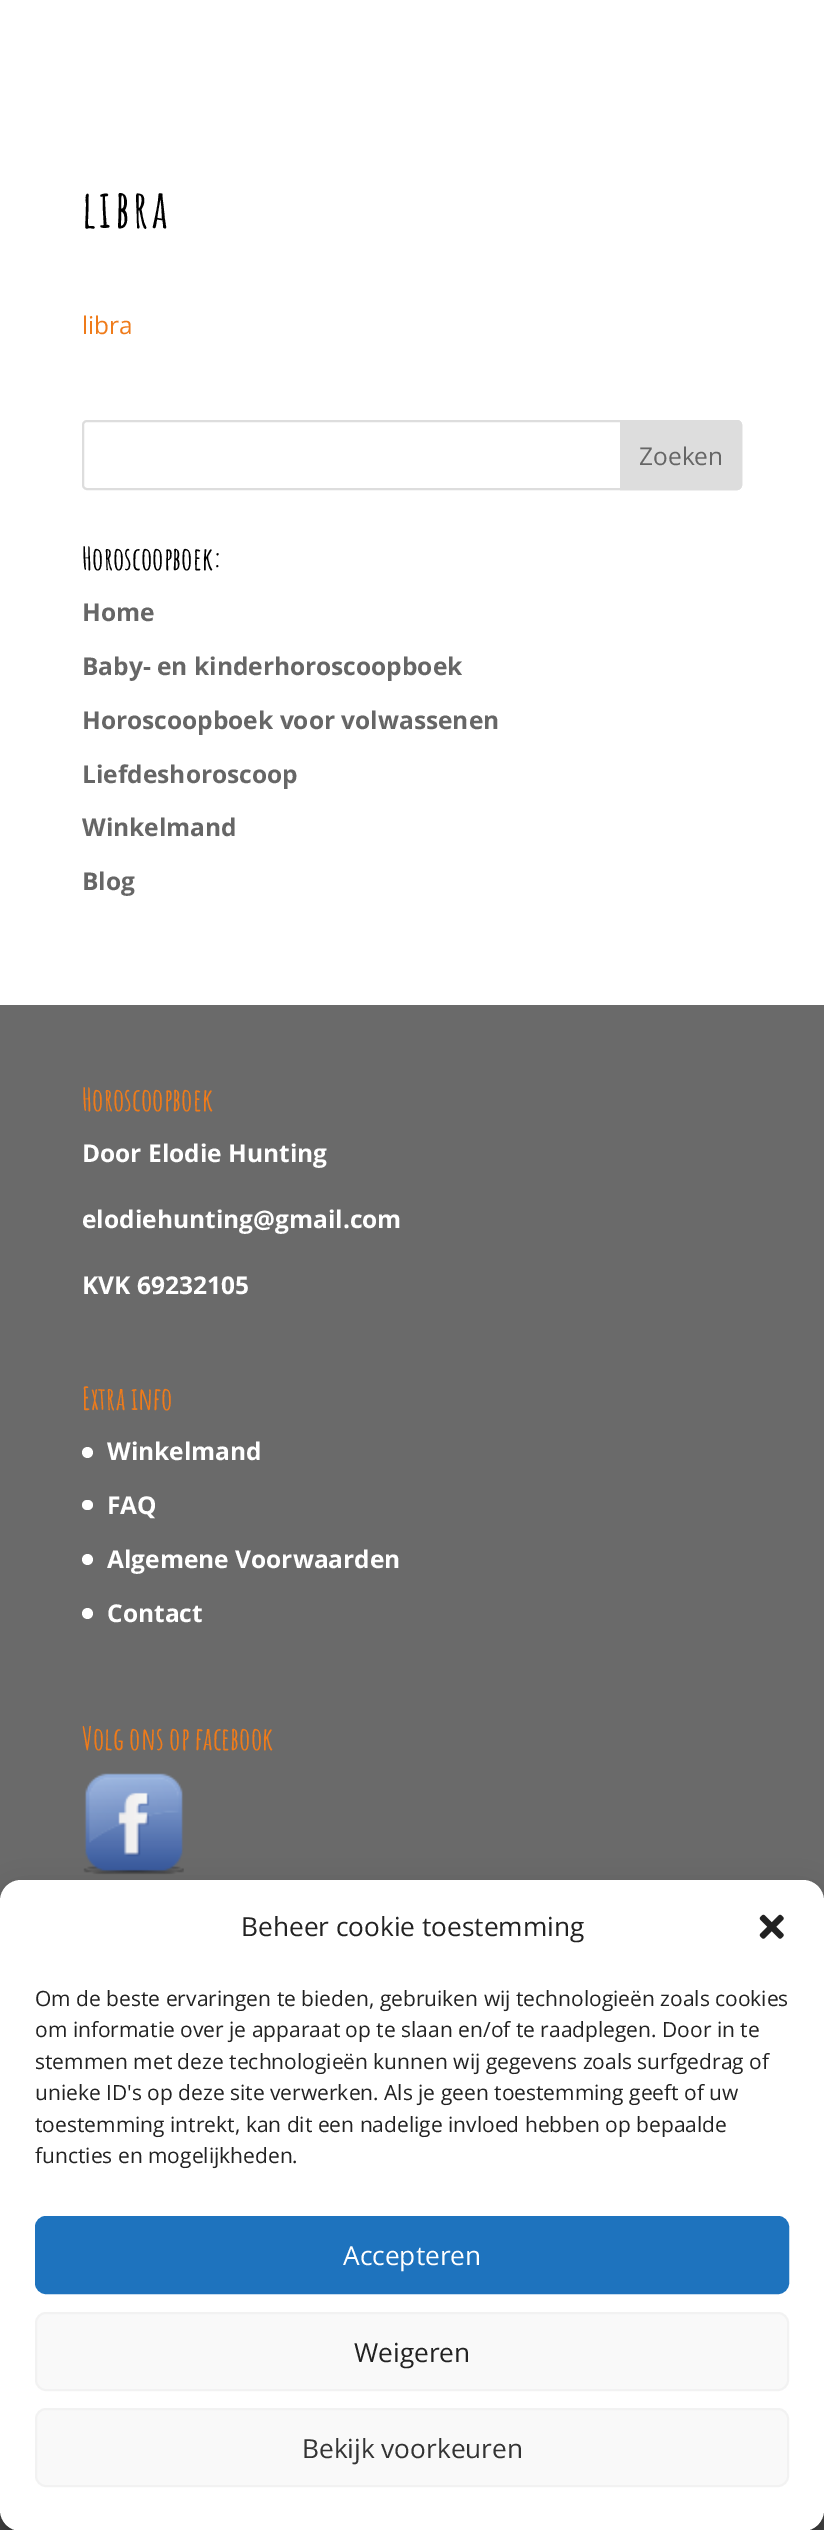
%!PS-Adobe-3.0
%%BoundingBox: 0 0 824 2530
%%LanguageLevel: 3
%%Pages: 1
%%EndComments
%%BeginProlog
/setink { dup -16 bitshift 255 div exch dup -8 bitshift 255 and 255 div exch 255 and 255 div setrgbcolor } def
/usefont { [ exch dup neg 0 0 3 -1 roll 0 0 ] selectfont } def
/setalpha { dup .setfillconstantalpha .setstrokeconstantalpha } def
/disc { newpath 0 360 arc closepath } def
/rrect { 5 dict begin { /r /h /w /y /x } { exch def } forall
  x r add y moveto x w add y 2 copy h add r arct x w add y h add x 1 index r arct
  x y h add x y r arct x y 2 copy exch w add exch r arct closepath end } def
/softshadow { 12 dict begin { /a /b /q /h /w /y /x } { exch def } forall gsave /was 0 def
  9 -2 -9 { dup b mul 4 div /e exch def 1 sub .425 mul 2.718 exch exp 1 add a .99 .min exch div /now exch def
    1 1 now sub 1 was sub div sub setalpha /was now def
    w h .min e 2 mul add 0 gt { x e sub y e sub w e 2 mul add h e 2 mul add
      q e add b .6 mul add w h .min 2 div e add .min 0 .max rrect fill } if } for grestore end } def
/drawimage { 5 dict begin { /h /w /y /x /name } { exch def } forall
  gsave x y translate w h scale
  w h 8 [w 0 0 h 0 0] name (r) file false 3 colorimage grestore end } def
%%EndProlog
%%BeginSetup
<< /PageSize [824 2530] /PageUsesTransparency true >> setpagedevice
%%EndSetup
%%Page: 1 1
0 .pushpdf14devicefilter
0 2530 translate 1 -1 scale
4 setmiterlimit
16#FFFFFF setink
0 0 824 2530 rectfill
/AmaticSC-Bold 52 usefont
16#000000 setink
82 228 moveto 3.5 0 (libra) ashow
/OpenSans-Regular 24.5 usefont
16#EF7B1A setink
82 334 moveto (libra) show
16#DDDDDD setink
2 setlinewidth
83 421 658 68 4 rrect stroke
621 421 moveto 737 421 lineto 739 421 741 423 741 425 curveto 741 485 lineto 741 487 739 489 737 489 curveto 621 489 lineto closepath gsave fill grestore
stroke
16#666666 setink
639 465 moveto (Zoeken) show
/AmaticSC-Bold 31.5 usefont
16#000000 setink
82 570 moveto (Horoscoopboek:) show
/OpenSans-Bold 24.5 usefont
16#666666 setink
[
    [(Home) 82 621]
    [(Baby- en kinderhoroscoopboek) 82 675]
    [(Horoscoopboek voor volwassenen) 82 729]
    [(Liefdeshoroscoop) 82 783]
    [(Winkelmand) 82 836]
    [(Blog) 82 890]
] { aload pop moveto show } forall
16#6A6A6A setink
0 1005 824 896 rectfill
/AmaticSC-Bold 31.5 usefont
16#EF7B1A setink
82 1111 moveto (Horoscoopboek) show
/OpenSans-Bold 24.5 usefont
16#FFFFFF setink
[
    [(Door Elodie Hunting) 82 1162]
    [(elodiehunting@gmail.com) 82 1228]
    [(KVK 69232105) 82 1294]
] { aload pop moveto show } forall
/AmaticSC-Bold 31.5 usefont
16#EF7B1A setink
82 1410 moveto (Extra info) show
16#FFFFFF setink
87.5 1452.5 5.5 disc fill
/OpenSans-Bold 24.5 usefont
107 1460 moveto (Winkelmand) show
82 1500 11 10 5 rrect fill
107 1514 moveto (FAQ) show
87.5 1559.5 5.5 disc fill
107 1568 moveto (Algemene Voorwaarden) show
87.5 1613.5 5.5 disc fill
107 1622 moveto (Contact) show
/AmaticSC-Bold 31.5 usefont
16#EF7B1A setink
82 1750 moveto (Volg ons op facebook) show
(img1.raw) 83 1773 101 102 drawimage
16#484848 setink
0 2510 824 20 rectfill
16#000000 setink
0 1890 824 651 21 5 0.23 softshadow
0 1897 824 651 21 17.5 0.19 softshadow
16#FFFFFF setink
0 1880 824 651 21 rrect fill
/OpenSans-Regular 26.25 usefont
16#222222 setink
241 1936 moveto (Beheer cookie toestemming) show
(img2.raw) 759 1914 25 25 drawimage
/OpenSans-Regular 21 usefont
[
    [(Om de beste ervaringen te bieden, gebruiken wij technologieën zoals cookies) 35 2006]
    [(om informatie over je apparaat op te slaan en/of te raadplegen. Door in te) 35 2037]
    [(stemmen met deze technologieën kunnen wij gegevens zoals surfgedrag of) 35 2069]
    [(unieke ID's op deze site verwerken. Als je geen toestemming geeft of uw) 35 2100]
    [(toestemming intrekt, kan dit een nadelige invloed hebben op bepaalde) 35 2132]
    [(functies en mogelijkheden.) 35 2163]
] { aload pop moveto show } forall
16#1E73BE setink
36 2217 752 76 10 rrect gsave fill grestore
stroke
/OpenSans-Regular 26.25 usefont
16#FFFFFF setink
343 2265 moveto (Accepteren) show
16#F9F9F9 setink
36 2313 752 77 10 rrect gsave fill grestore
16#F2F2F2 setink
stroke
16#222222 setink
354 2362 moveto (Weigeren) show
16#F9F9F9 setink
36 2409 752 77 10 rrect gsave fill grestore
16#F2F2F2 setink
stroke
16#333333 setink
302 2458 moveto (Bekijk voorkeuren) show
.poppdf14devicefilter showpage
%%EOF
